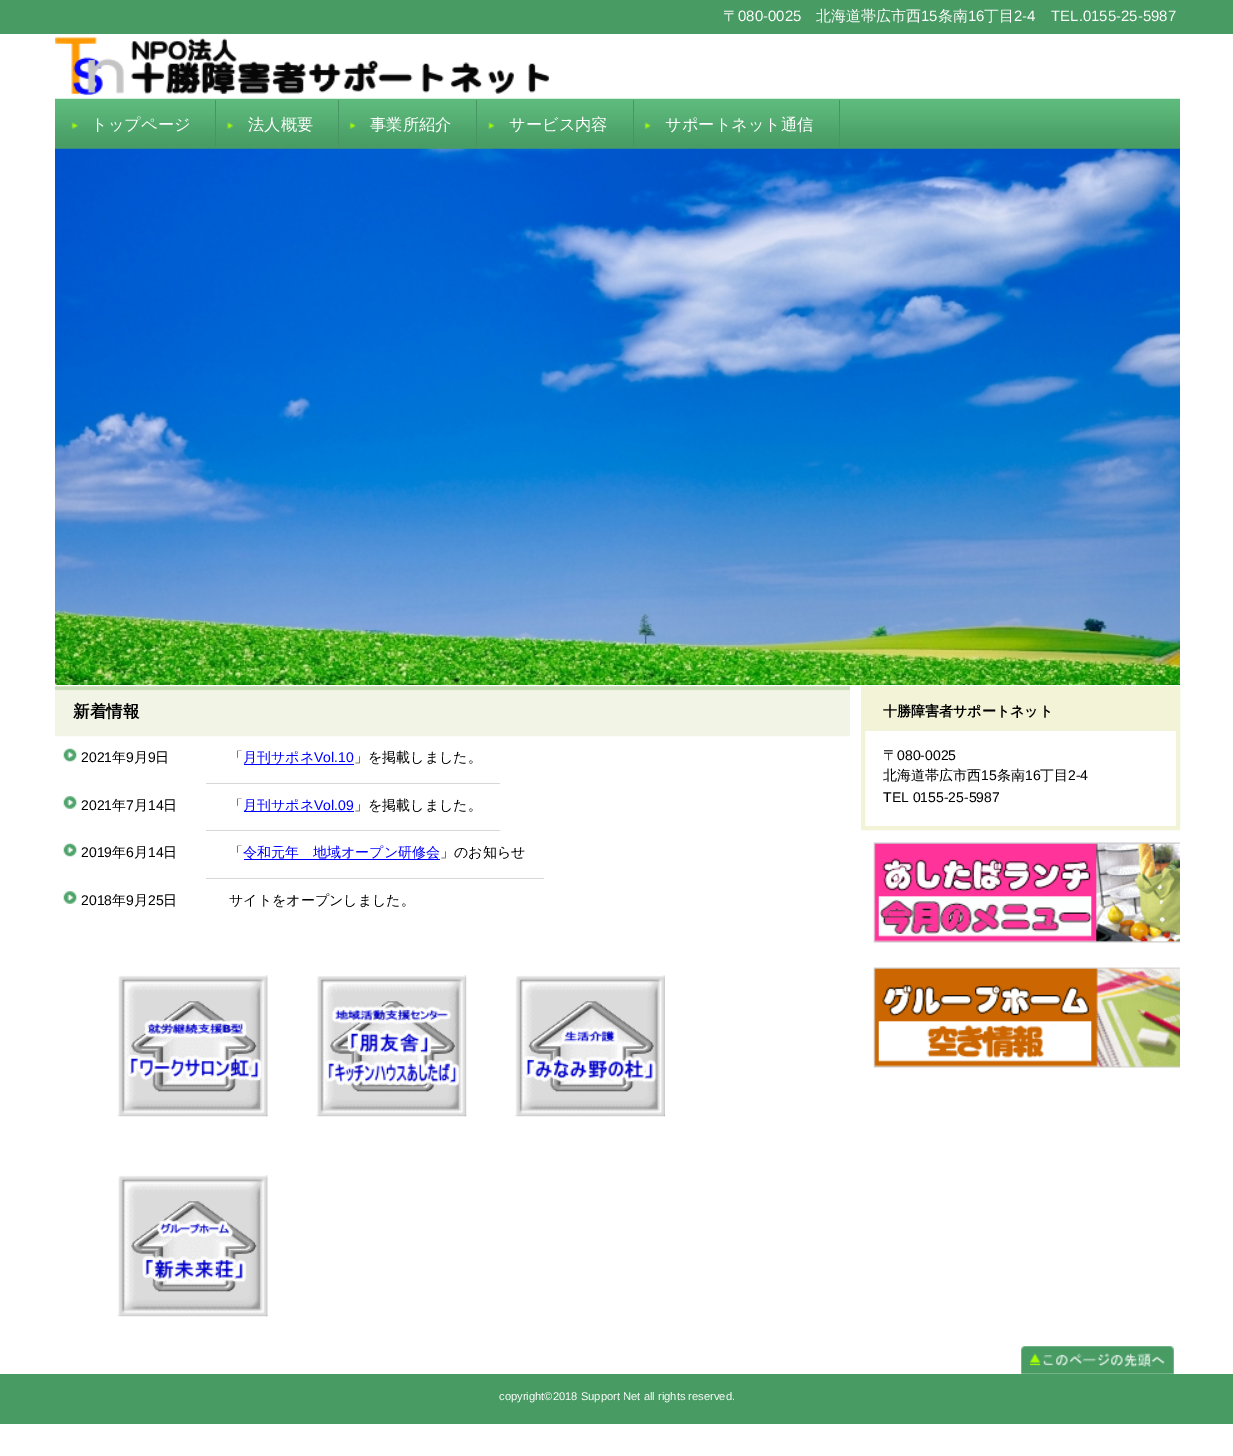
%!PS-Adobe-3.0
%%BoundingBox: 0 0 1233 1456
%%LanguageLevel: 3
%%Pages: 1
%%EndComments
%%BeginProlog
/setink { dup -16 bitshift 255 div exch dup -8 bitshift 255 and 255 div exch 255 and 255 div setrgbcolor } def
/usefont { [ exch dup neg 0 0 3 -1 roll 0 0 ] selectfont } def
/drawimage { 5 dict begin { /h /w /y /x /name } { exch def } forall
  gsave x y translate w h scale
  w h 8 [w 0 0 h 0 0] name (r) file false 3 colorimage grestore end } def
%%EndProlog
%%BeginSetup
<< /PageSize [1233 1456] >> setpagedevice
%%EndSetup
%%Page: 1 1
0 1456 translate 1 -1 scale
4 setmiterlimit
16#FFFFFF setink
0 0 1233 1456 rectfill
16#479B63 setink
0 0 1233 34 rectfill
/WenQuanYiZenHei-Medium 15 usefont
16#FFFFFF setink
723 21 moveto (〒) show
/LiberationSans-Regular 15 usefont
738 21 moveto (080-0025) show
/WenQuanYiZenHei-Medium 15 usefont
816 21 moveto (北海道帯広市西) show
/LiberationSans-Regular 15 usefont
921 21 moveto (15) show
/WenQuanYiZenHei-Medium 15 usefont
938 21 moveto (条南) show
/LiberationSans-Regular 15 usefont
968 21 moveto (16) show
/WenQuanYiZenHei-Medium 15 usefont
984 21 moveto (丁目) show
/LiberationSans-Regular 15 usefont
1014 21 moveto (2-4) show
1051 21 moveto (TEL.0155-25-5987) show
(img1.raw) 55 37 495 58 drawimage
(img8.raw) 55 148 1125 537 drawimage
(img2.raw) 55 98 1125 51 drawimage
16#489462 setink
215 100 1 49 rectfill
(img3.raw) 71 122 7 7 drawimage
/WenQuanYiZenHei-Medium 16.25 usefont
16#FFFFFF setink
91 130 moveto (トップページ) show
16#489462 setink
338 100 1 49 rectfill
(img4.raw) 227 122 6 7 drawimage
16#FFFFFF setink
248 130 moveto (法人概要) show
16#489462 setink
476 100 1 49 rectfill
(img5.raw) 349 122 7 7 drawimage
16#FFFFFF setink
370 130 moveto (事業所紹介) show
16#489462 setink
633 100 1 49 rectfill
(img6.raw) 488 122 7 7 drawimage
16#FFFFFF setink
509 130 moveto (サービス内容) show
16#489462 setink
839 100 1 49 rectfill
(img7.raw) 644 122 7 7 drawimage
16#FFFFFF setink
665 130 moveto (サポートネット通信) show
(img9.raw) 55 686 795 51 drawimage
/WenQuanYiZenHei-Bold 16.5 usefont
16#000000 setink
73 717 moveto (新着情報) show
(img10.raw) 63 748 14 14 drawimage
/LiberationSans-Regular 14 usefont
81 762 moveto (2021) show
/WenQuanYiZenHei-Medium 14 usefont
112 762 moveto (年) show
/LiberationSans-Regular 14 usefont
126 762 moveto (9) show
/WenQuanYiZenHei-Medium 14 usefont
134 762 moveto (月) show
/LiberationSans-Regular 14 usefont
148 762 moveto (9) show
/WenQuanYiZenHei-Medium 14 usefont
155 762 moveto (日) show
16#D8D8D8 setink
206 783 294 1 rectfill
16#000000 setink
229 762 moveto (「) show
16#0000FF setink
243 762 moveto (月刊サポネ) show
244 764 110 1 rectfill
/LiberationSans-Regular 14 usefont
314 762 moveto (Vol.10) show
/WenQuanYiZenHei-Medium 14 usefont
16#000000 setink
354 762 moveto (」を掲載しました。) show
(img11.raw) 63 796 14 13 drawimage
/LiberationSans-Regular 14 usefont
81 810 moveto (2021) show
/WenQuanYiZenHei-Medium 14 usefont
112 810 moveto (年) show
/LiberationSans-Regular 14 usefont
126 810 moveto (7) show
/WenQuanYiZenHei-Medium 14 usefont
134 810 moveto (月) show
/LiberationSans-Regular 14 usefont
148 810 moveto (14) show
/WenQuanYiZenHei-Medium 14 usefont
163 810 moveto (日) show
16#D8D8D8 setink
206 830 294 1 rectfill
16#000000 setink
229 810 moveto (「) show
16#0000FF setink
244 811 110 1 rectfill
243 810 moveto (月刊サポネ) show
/LiberationSans-Regular 14 usefont
314 810 moveto (Vol.09) show
/WenQuanYiZenHei-Medium 14 usefont
16#000000 setink
354 810 moveto (」を掲載しました。) show
(img10.raw) 63 843 14 14 drawimage
/LiberationSans-Regular 14 usefont
81 857 moveto (2019) show
/WenQuanYiZenHei-Medium 14 usefont
112 857 moveto (年) show
/LiberationSans-Regular 14 usefont
126 857 moveto (6) show
/WenQuanYiZenHei-Medium 14 usefont
134 857 moveto (月) show
/LiberationSans-Regular 14 usefont
148 857 moveto (14) show
/WenQuanYiZenHei-Medium 14 usefont
163 857 moveto (日) show
16#D8D8D8 setink
206 878 338 1 rectfill
16#000000 setink
229 857 moveto (「) show
16#0000FF setink
244 859 196 1 rectfill
243 857 moveto (令和元年　地域オープン研修会) show
16#000000 setink
440 857 moveto (」のお知らせ) show
(img11.raw) 63 891 14 13 drawimage
/LiberationSans-Regular 14 usefont
81 905 moveto (2018) show
/WenQuanYiZenHei-Medium 14 usefont
112 905 moveto (年) show
/LiberationSans-Regular 14 usefont
126 905 moveto (9) show
/WenQuanYiZenHei-Medium 14 usefont
134 905 moveto (月) show
/LiberationSans-Regular 14 usefont
148 905 moveto (25) show
/WenQuanYiZenHei-Medium 14 usefont
163 905 moveto (日) show
229 905 moveto (サイトをオープンしました。) show
(img12.raw) 1021 1346 153 28 drawimage
16#F3F4D7 setink
4 setlinewidth
863 688 315 140 rectstroke
865 690 311 41 rectfill
/WenQuanYiZenHei-Bold 14 usefont
16#000000 setink
883 716 moveto (十勝障害者サポートネット) show
/WenQuanYiZenHei-Medium 14 usefont
883 760 moveto (〒) show
/LiberationSans-Regular 14 usefont
897 760 moveto (080-0025) show
/WenQuanYiZenHei-Medium 14 usefont
883 780 moveto (北海道帯広市西) show
/LiberationSans-Regular 14 usefont
981 780 moveto (15) show
/WenQuanYiZenHei-Medium 14 usefont
997 780 moveto (条南) show
/LiberationSans-Regular 14 usefont
1025 780 moveto (16) show
/WenQuanYiZenHei-Medium 14 usefont
1040 780 moveto (丁目) show
/LiberationSans-Regular 14 usefont
1068 780 moveto (2-4) show
883 802 moveto (TEL 0155-25-5987) show
(img13.raw) 117 975 151 142 drawimage
(img14.raw) 316 975 151 142 drawimage
(img15.raw) 515 975 150 142 drawimage
(img16.raw) 117 1175 151 142 drawimage
(img17.raw) 873 842 307 101 drawimage
(img18.raw) 873 967 307 101 drawimage
16#479B63 setink
0 1374 1233 50 rectfill
/LiberationSans-Regular 11.2 usefont
16#FFFFFF setink
499 1400 moveto (copyright©2018 Support Net all rights reserved.) show
showpage
%%EOF
